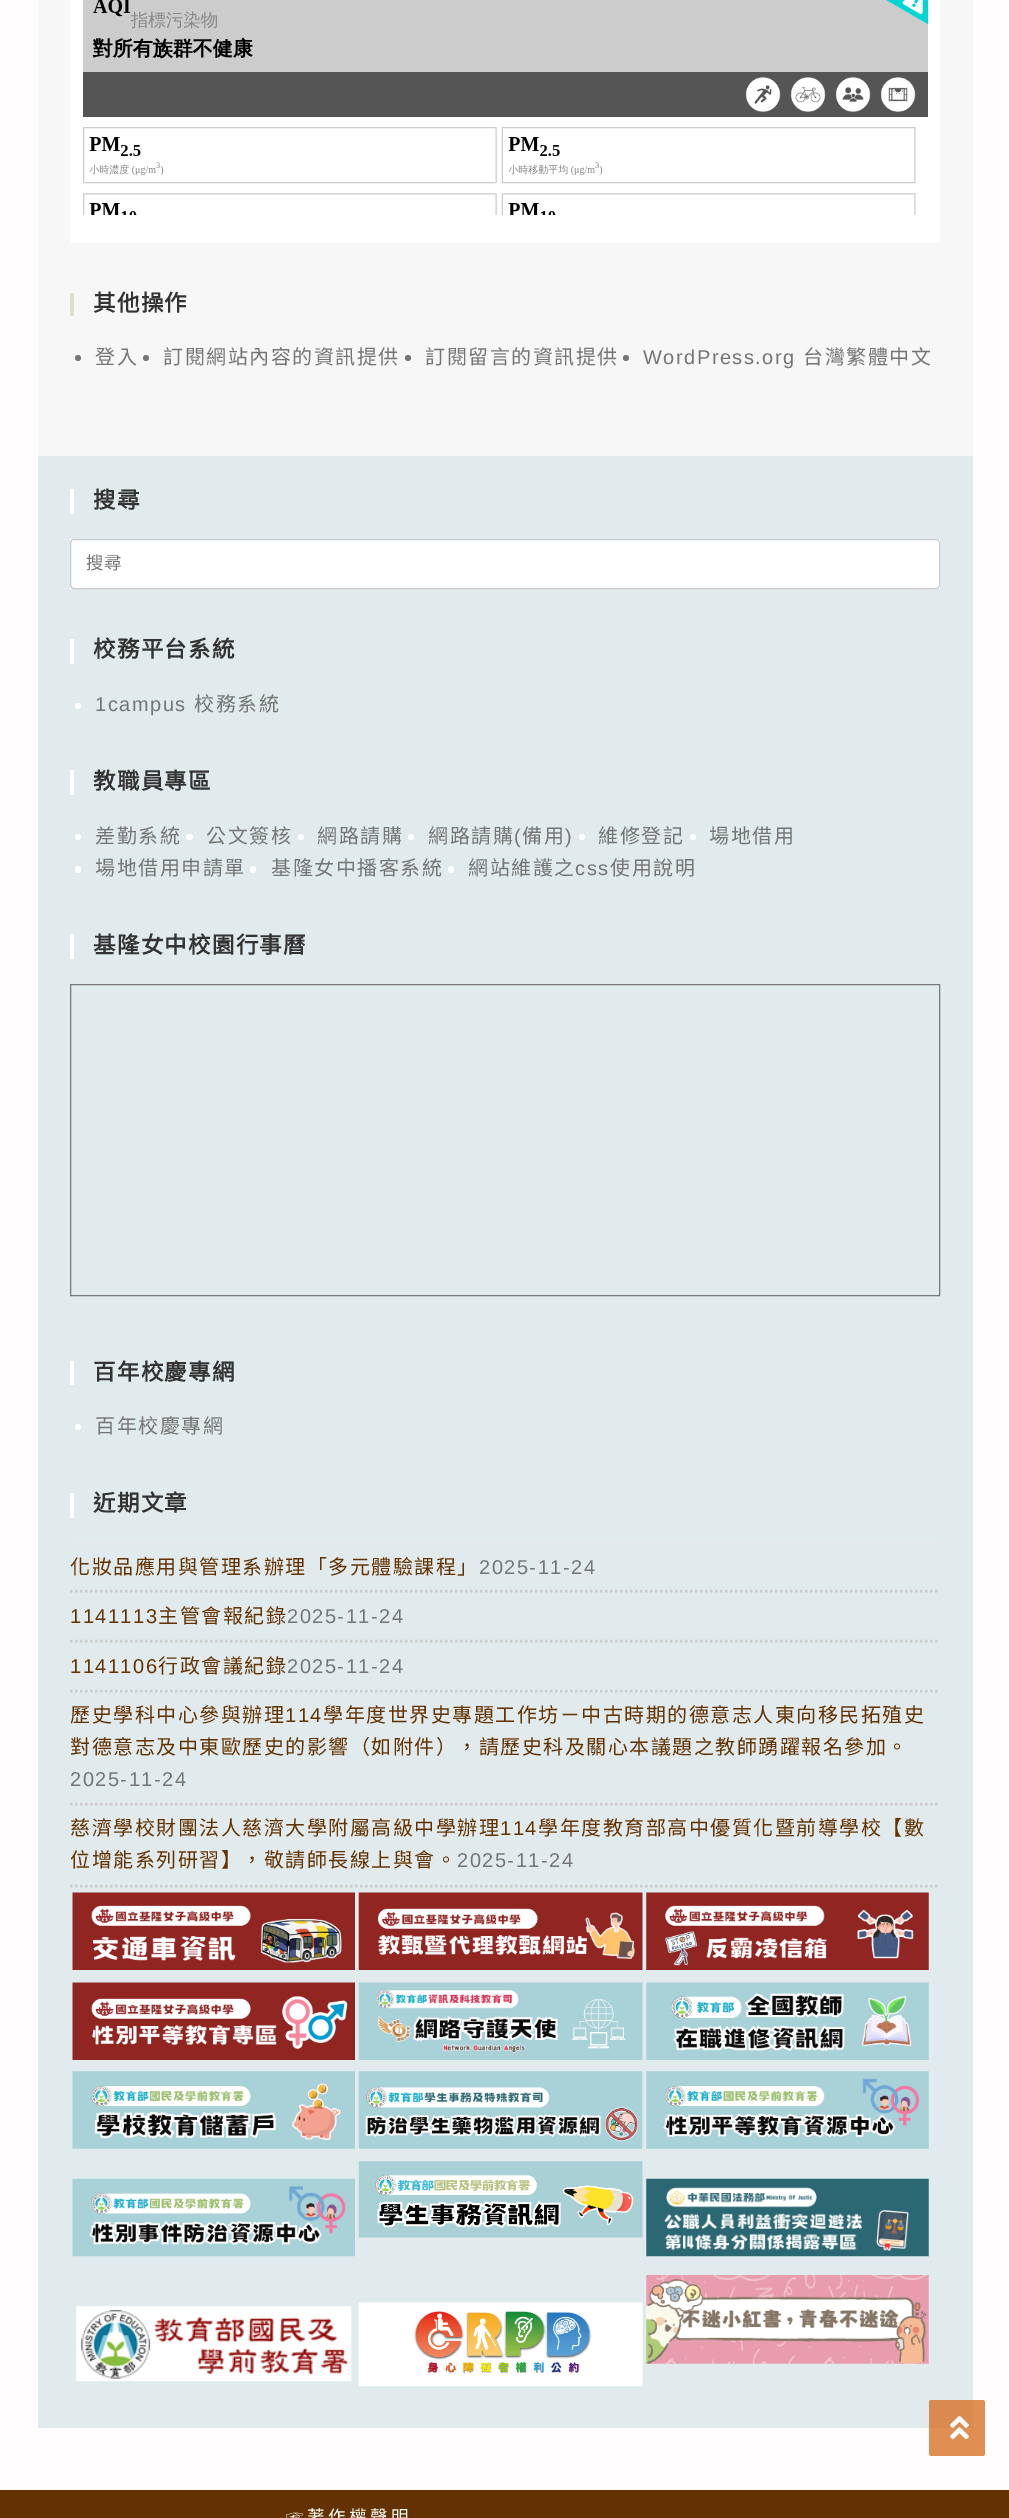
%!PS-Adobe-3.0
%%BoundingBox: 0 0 1009 2518
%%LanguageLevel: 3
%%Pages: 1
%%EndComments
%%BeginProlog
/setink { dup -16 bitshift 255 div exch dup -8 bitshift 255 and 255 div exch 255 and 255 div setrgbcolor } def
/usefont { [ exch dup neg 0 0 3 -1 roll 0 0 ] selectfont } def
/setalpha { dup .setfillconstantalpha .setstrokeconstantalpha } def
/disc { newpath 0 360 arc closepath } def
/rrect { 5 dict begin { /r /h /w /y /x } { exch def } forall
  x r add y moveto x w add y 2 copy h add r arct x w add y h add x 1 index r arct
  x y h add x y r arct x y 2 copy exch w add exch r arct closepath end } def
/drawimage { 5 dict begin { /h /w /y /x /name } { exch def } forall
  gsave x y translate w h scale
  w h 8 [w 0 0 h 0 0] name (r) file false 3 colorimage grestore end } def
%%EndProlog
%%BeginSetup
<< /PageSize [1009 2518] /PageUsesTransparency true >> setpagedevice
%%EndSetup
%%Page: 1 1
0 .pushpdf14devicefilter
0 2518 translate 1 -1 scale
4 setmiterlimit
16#FFFDFE setink
0 0 1009 2518 rectfill
16#F7F7F7 setink
38 0 935 456 rectfill
16#FFFFFF setink
70 0 870 243 rectfill
(img1.raw) 83 0 845 215 drawimage
16#E1DFCF setink
70 293 4 23 rectfill
/NotoSansCJKTC-Bold 22.5 usefont
16#333333 setink
93 311 moveto 1.25 0 (其他操作) ashow
16#777777 setink
78 358 3 disc fill
/NotoSansCJKTC-Regular 20 usefont
16#757575 setink
95 364 moveto 1.5 0 (登入) ashow
16#777777 setink
146 358 3 disc fill
16#757575 setink
163 364 moveto 1.5 0 (訂閱網站內容的資訊提供) ashow
16#777777 setink
408 358 3 disc fill
16#757575 setink
425 364 moveto 1.5 0 (訂閱留言的資訊提供) ashow
16#777777 setink
626 358 3 disc fill
/LiberationSans-Regular 20 usefont
16#757575 setink
643 364 moveto 1.5 0 (WordPress.org) ashow
/NotoSansCJKTC-Regular 20 usefont
803 364 moveto 1.5 0 (台灣繁體中文) ashow
16#E1EBED setink
38 456 935 1972 rectfill
16#FFFFFF setink
70 489 4 25 rectfill
/NotoSansCJKTC-Bold 22.5 usefont
16#333333 setink
93 508 moveto 1.25 0 (搜尋) ashow
16#FFFFFF setink
70 539 870 50 rectfill
16#CCCCCC setink
70.5 539.5 869 49 3.5 rrect stroke
/NotoSansCJKTC-Regular 17.5 usefont
16#757575 setink
86 569 moveto (搜尋) show
16#FFFFFF setink
70 639 4 25 rectfill
/NotoSansCJKTC-Bold 22.5 usefont
16#333333 setink
93 657 moveto 1.25 0 (校務平台系統) ashow
16#FFFFFF setink
78 706 3 disc fill
/LiberationSans-Regular 20 usefont
16#757575 setink
95 711 moveto 1.5 0 (1campus) ashow
/NotoSansCJKTC-Regular 20 usefont
194 711 moveto 1.5 0 (校務系統) ashow
16#FFFFFF setink
70 770 4 25 rectfill
/NotoSansCJKTC-Bold 22.5 usefont
16#333333 setink
93 789 moveto 1.25 0 (教職員專區) ashow
16#FFFFFF setink
78 837 3 disc fill
/NotoSansCJKTC-Regular 20 usefont
16#757575 setink
95 843 moveto 1.5 0 (差勤系統) ashow
16#FFFFFF setink
186 834 7 6 3 rrect fill
16#757575 setink
206 843 moveto 1.5 0 (公文簽核) ashow
16#FFFFFF setink
301 837 3 disc fill
16#757575 setink
317 843 moveto 1.5 0 (網路請購) ashow
16#FFFFFF setink
411 837 3 disc fill
16#757575 setink
428 843 moveto 1.5 0 (網路請購) ashow
/LiberationSans-Regular 20 usefont
514 843 moveto 1.5 0 (\() ashow
/NotoSansCJKTC-Regular 20 usefont
522 843 moveto 1.5 0 (備用) ashow
/LiberationSans-Regular 20 usefont
565 843 moveto 1.5 0 (\)) ashow
16#FFFFFF setink
582 837 3 disc fill
/NotoSansCJKTC-Regular 20 usefont
16#757575 setink
598 843 moveto 1.5 0 (維修登記) ashow
16#FFFFFF setink
693 837 3 disc fill
16#757575 setink
709 843 moveto 1.5 0 (場地借用) ashow
16#FFFFFF setink
75 866 6 7 3 rrect fill
16#757575 setink
95 875 moveto 1.5 0 (場地借用申請單) ashow
16#FFFFFF setink
250 866 6 7 3 rrect fill
16#757575 setink
271 875 moveto 1.5 0 (基隆女中播客系統) ashow
16#FFFFFF setink
448 866 6 7 3 rrect fill
16#757575 setink
468 875 moveto 1.5 0 (網站維護之) ashow
/LiberationSans-Regular 20 usefont
575 875 moveto 1.5 0 (css) ashow
/NotoSansCJKTC-Regular 20 usefont
610 875 moveto 1.5 0 (使用說明) ashow
16#FFFFFF setink
70 934 4 25 rectfill
/NotoSansCJKTC-Bold 22.5 usefont
16#333333 setink
93 953 moveto 1.25 0 (基隆女中校園行事曆) ashow
16#777777 setink
70.5 984.5 869 311 rectstroke
16#FFFFFF setink
70 1361 4 24 rectfill
16#333333 setink
93 1380 moveto 1.25 0 (百年校慶專網) ashow
16#FFFFFF setink
78 1427 3 disc fill
/NotoSansCJKTC-Regular 20 usefont
16#757575 setink
95 1433 moveto 1.5 0 (百年校慶專網) ashow
16#FFFFFF setink
70 1493 4 25 rectfill
/NotoSansCJKTC-Bold 22.5 usefont
16#333333 setink
93 1511 moveto 1.25 0 (近期文章) ashow
16#E9E9E9 setink
70 1543 870 1 rectfill
16#CCCCCC setink
2.5 setlinewidth
[2.5 2.5] 0 setdash
70 1591 moveto 940 1591 lineto stroke
/NotoSansCJKTC-Regular 20 usefont
16#643200 setink
70 1574 moveto 1.5 0 (化妝品應用與管理系辦理「多元體驗課程」) ashow
/LiberationSans-Regular 20 usefont
16#757575 setink
479 1574 moveto 1.5 0 (2025-11-24) ashow
16#CCCCCC setink
70 1641 moveto 940 1641 lineto stroke
16#643200 setink
70 1623 moveto 1.5 0 (1141113) ashow
/NotoSansCJKTC-Regular 20 usefont
158 1623 moveto 1.5 0 (主管會報紀錄) ashow
/LiberationSans-Regular 20 usefont
16#757575 setink
287 1623 moveto 1.5 0 (2025-11-24) ashow
16#CCCCCC setink
70 1691 moveto 940 1691 lineto stroke
16#643200 setink
70 1673 moveto 1.5 0 (1141106) ashow
/NotoSansCJKTC-Regular 20 usefont
158 1673 moveto 1.5 0 (行政會議紀錄) ashow
/LiberationSans-Regular 20 usefont
16#757575 setink
287 1673 moveto 1.5 0 (2025-11-24) ashow
16#CCCCCC setink
70 1804 moveto 940 1804 lineto stroke
/NotoSansCJKTC-Regular 20 usefont
16#643200 setink
70 1722 moveto 1.5 0 (歷史學科中心參與辦理) ashow
/LiberationSans-Regular 20 usefont
285 1722 moveto 1.5 0 (114) ashow
/NotoSansCJKTC-Regular 20 usefont
323 1722 moveto 1.5 0 (學年度世界史專題工作坊－中古時期的德意志人東向移民拓殖史) ashow
70 1754 moveto 1.5 0 (對德意志及中東歐歷史的影響（如附件），請歷史科及關心本議題之教師踴躍報名參加。) ashow
/LiberationSans-Regular 20 usefont
16#757575 setink
70 1786 moveto 1.5 0 (2025-11-24) ashow
16#CCCCCC setink
70 1886 moveto 940 1886 lineto stroke
/NotoSansCJKTC-Regular 20 usefont
16#643200 setink
70 1835 moveto 1.5 0 (慈濟學校財團法人慈濟大學附屬高級中學辦理) ashow
/LiberationSans-Regular 20 usefont
500 1835 moveto 1.5 0 (114) ashow
/NotoSansCJKTC-Regular 20 usefont
538 1835 moveto 1.5 0 (學年度教育部高中優質化暨前導學校【數) ashow
70 1867 moveto 1.5 0 (位增能系列研習】，敬請師長線上與會。) ashow
/LiberationSans-Regular 20 usefont
16#757575 setink
457 1867 moveto 1.5 0 (2025-11-24) ashow
(img2.raw) 72 1892 283 78 drawimage
(img3.raw) 358 1892 285 78 drawimage
(img4.raw) 646 1892 283 78 drawimage
(img5.raw) 72 1982 283 78 drawimage
(img6.raw) 358 1982 285 78 drawimage
(img7.raw) 646 1982 283 78 drawimage
(img8.raw) 72 2071 283 78 drawimage
(img9.raw) 358 2071 285 78 drawimage
(img10.raw) 646 2071 283 78 drawimage
(img11.raw) 72 2178 283 79 drawimage
(img12.raw) 358 2161 285 77 drawimage
(img13.raw) 646 2178 283 79 drawimage
(img14.raw) 76 2306 276 76 drawimage
(img15.raw) 358 2302 285 85 drawimage
(img16.raw) 646 2275 283 89 drawimage
16#643200 setink
0 2490 1009 28 rectfill
/NotoSansTC-Regular 17.5 usefont
16#FFFFFF setink
286 2523 moveto 3.5 0 (☞著作權聲明) ashow
0.75 setalpha
16#D76919 setink
929 2400 56 56 2.5 rrect fill
1 setalpha
(img17.raw) 950 2415 19 25 drawimage
.poppdf14devicefilter showpage
%%EOF
